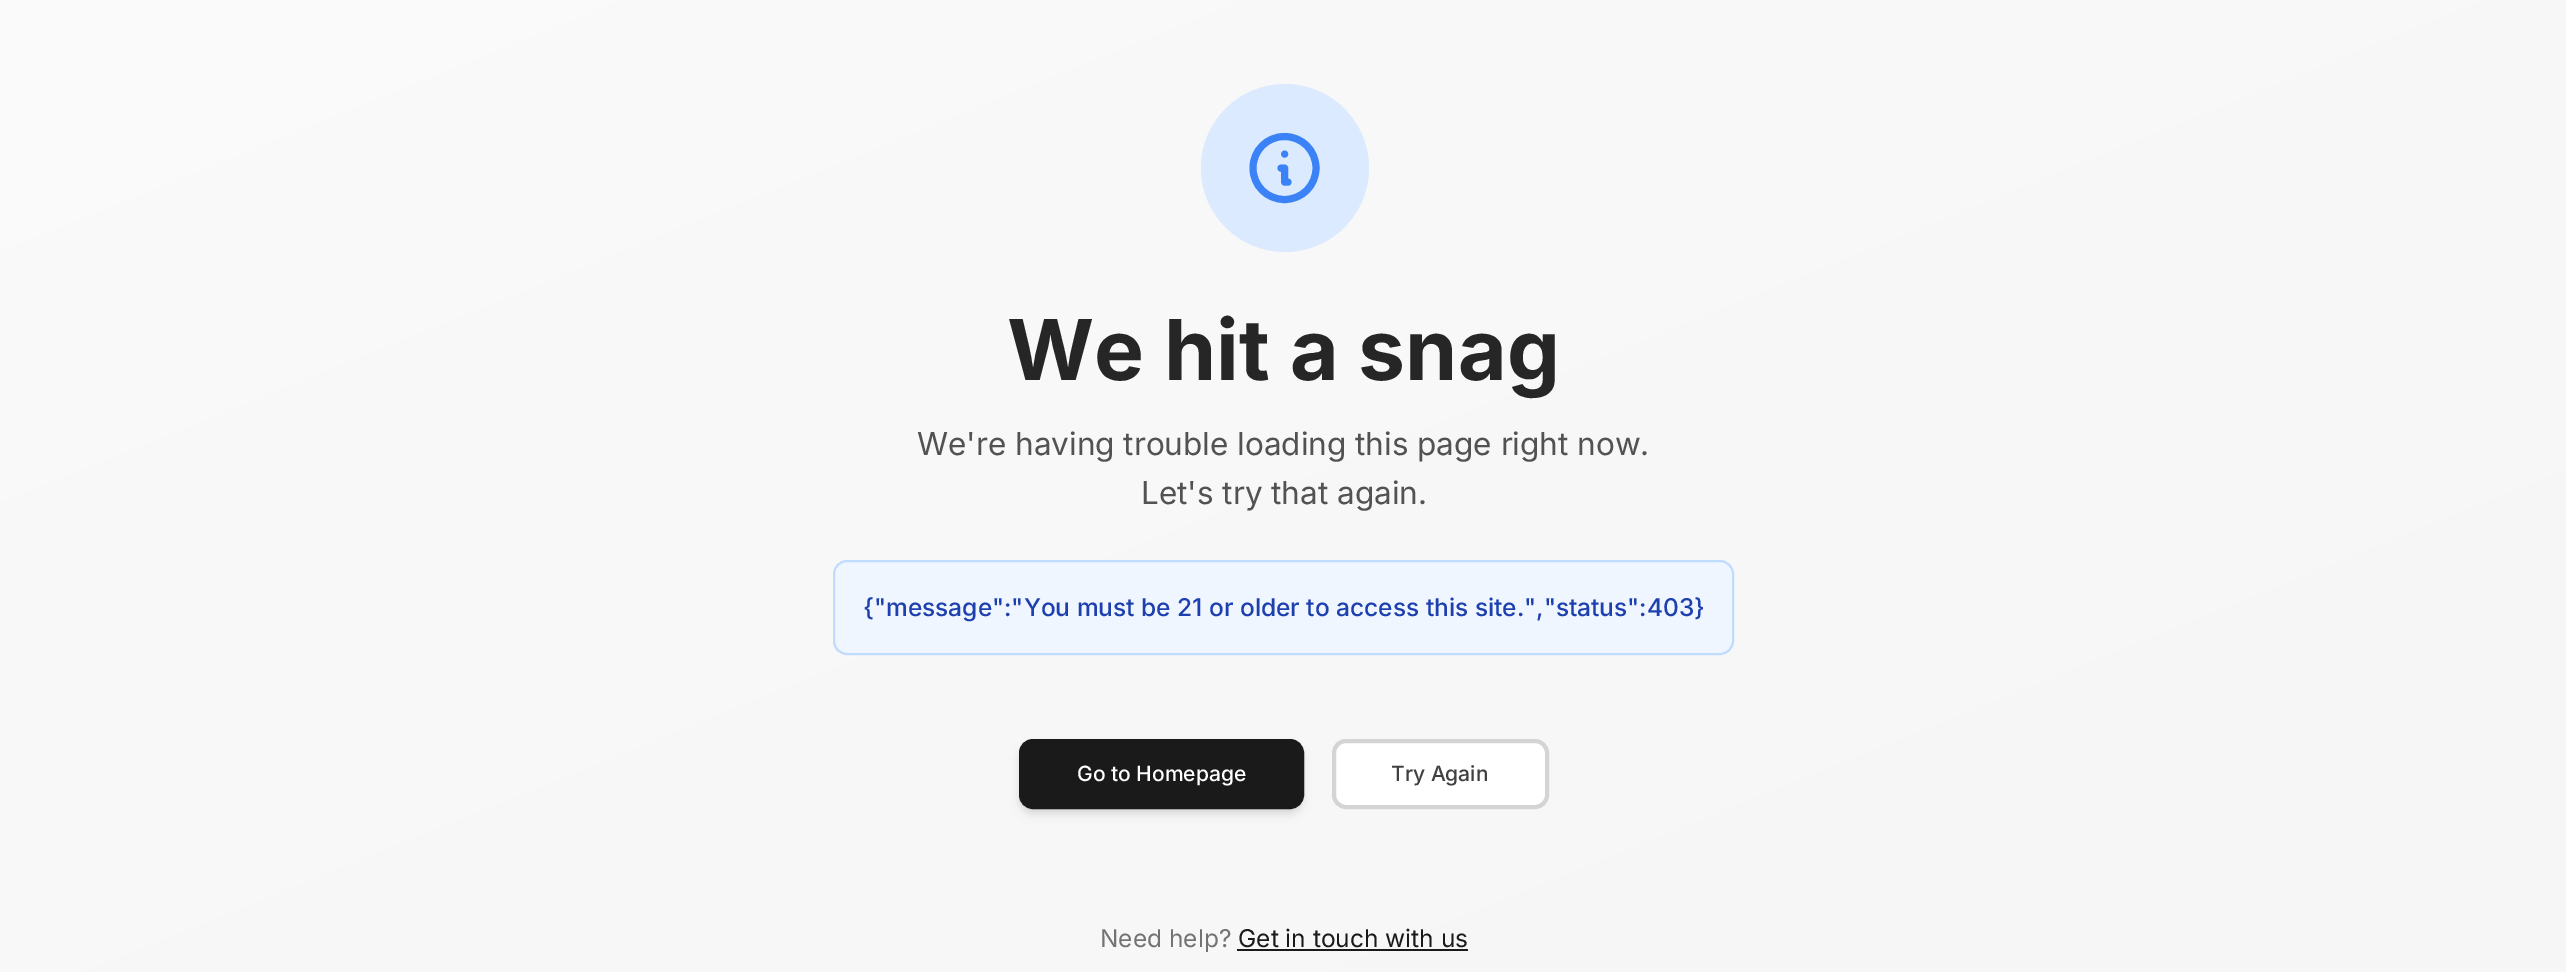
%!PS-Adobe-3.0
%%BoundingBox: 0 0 2566 972
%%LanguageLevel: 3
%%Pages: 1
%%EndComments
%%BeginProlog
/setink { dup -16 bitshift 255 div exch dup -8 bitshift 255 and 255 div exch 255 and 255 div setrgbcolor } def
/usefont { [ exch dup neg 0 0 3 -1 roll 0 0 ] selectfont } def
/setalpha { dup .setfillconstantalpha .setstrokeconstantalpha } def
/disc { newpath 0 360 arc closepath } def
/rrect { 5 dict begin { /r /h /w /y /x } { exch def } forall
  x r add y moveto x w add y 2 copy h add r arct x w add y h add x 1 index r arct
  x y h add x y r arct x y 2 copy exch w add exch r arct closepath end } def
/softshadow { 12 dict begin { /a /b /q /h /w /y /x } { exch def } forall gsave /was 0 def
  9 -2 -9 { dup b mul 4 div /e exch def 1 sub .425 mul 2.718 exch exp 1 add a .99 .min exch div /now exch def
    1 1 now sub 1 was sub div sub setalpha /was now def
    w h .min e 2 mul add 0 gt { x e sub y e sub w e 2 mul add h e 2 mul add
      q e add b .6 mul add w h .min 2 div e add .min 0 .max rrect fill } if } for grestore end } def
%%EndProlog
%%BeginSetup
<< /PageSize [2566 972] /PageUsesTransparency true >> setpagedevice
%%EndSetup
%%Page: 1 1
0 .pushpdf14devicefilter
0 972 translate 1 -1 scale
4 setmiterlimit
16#FFFFFF setink
0 0 2566 972 rectfill
gsave 0 0 moveto 2566 0 lineto 2566 972 lineto 0 972 lineto closepath clip newpath
<< /ShadingType 2 /ColorSpace /DeviceRGB /Coords [922 -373 1645 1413] /Extend [true true] /Function << /FunctionType 2 /Domain [0 1] /C0 [0.98 0.98 0.98] /C1 [0.961 0.961 0.961] /N 1 >> >> shfill grestore
16#DBEAFE setink
1285 168 84 disc fill
16#3B82F6 setink
7 setlinewidth
1 setlinecap
1 setlinejoin
1288 182 moveto 1284.5 182 lineto 1284.5 168 lineto 1281 168 lineto 1284.5 154 moveto 1284.5 154 lineto 1316 168 moveto 1316 185.5 1302 199.5 1284.5 199.5 curveto 1267 199.5 1253 185.5 1253 168 curveto 1253 150.5 1267 136.5 1284.5 136.5 curveto 1302 136.5 1316 150.5 1316 168 curveto closepath stroke
/Inter-Bold 84 usefont
16#262626 setink
1007 380 moveto (We hit a snag) show
/Inter-Regular 31.5 usefont
16#525252 setink
917 455 moveto (We're having trouble loading this page right now.) show
1141 504 moveto (Let's try that again.) show
16#EFF6FF setink
834 561 899 93 13 rrect gsave fill grestore
16#BFDBFE setink
2 setlinewidth
0 setlinecap
0 setlinejoin
stroke
/Inter-Medium 24.5 usefont
16#1E40AF setink
863 616 moveto ({"message":"You must be 21 or older to access this site.","status":403}) show
16#000000 setink
1022 746 278 63 11 3.5 0.1 softshadow
1020 747 282 67 12 5 0.1 softshadow
16#1A1A1A setink
1020 740 283 68 13 rrect gsave fill grestore
stroke
/Inter-Medium 21 usefont
16#FFFFFF setink
1077 781 moveto (Go to Homepage) show
1334 741 213 66 12 rrect gsave fill grestore
16#D4D4D4 setink
4 setlinewidth
stroke
16#404040 setink
1391 781 moveto (Try Again) show
/Inter-Regular 24.5 usefont
16#737373 setink
1100 947 moveto (Need help?) show
16#1A1A1A setink
1238 947 moveto (Get in touch with us) show
1237 949 231 2 rectfill
.poppdf14devicefilter showpage
%%EOF
